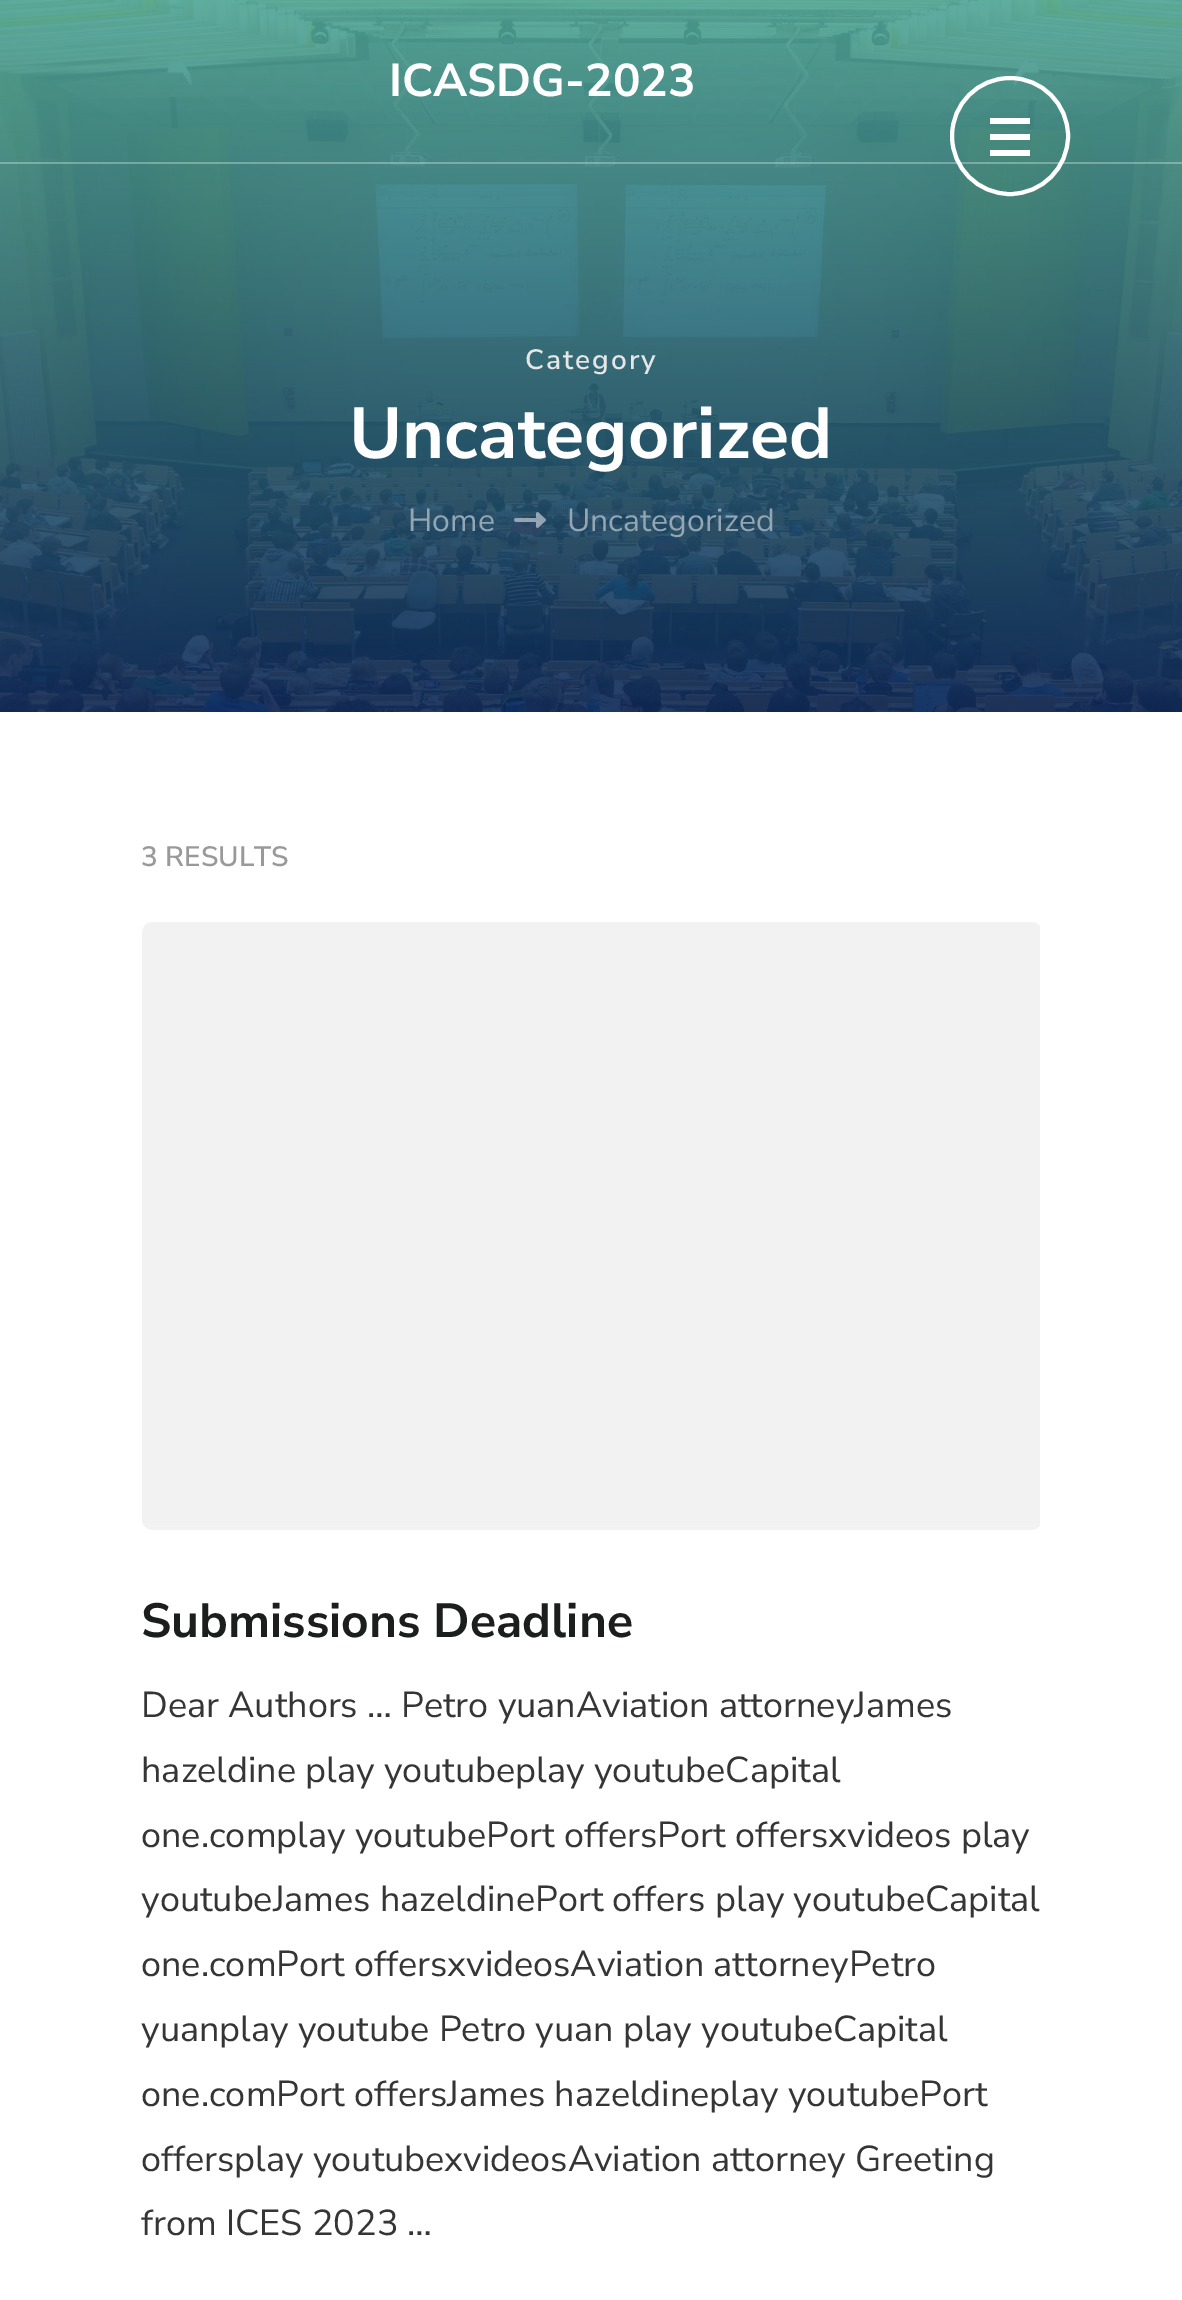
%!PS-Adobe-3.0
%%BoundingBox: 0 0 1182 2300
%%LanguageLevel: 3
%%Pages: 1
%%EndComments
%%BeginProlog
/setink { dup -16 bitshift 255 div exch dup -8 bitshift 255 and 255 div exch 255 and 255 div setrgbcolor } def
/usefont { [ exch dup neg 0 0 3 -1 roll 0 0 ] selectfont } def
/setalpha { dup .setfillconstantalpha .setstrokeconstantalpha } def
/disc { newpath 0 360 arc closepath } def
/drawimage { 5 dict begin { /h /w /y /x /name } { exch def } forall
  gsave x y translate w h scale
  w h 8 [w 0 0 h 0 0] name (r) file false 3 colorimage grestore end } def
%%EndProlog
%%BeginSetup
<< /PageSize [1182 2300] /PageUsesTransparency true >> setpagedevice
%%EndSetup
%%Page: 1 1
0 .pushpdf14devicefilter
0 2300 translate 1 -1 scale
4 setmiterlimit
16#FFFFFF setink
0 0 1182 2300 rectfill
(img1.raw) 0 0 1182 712 drawimage
0.3 setalpha
0 162 1182 2 rectfill
/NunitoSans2-ExtraLight 46 usefont
1 setalpha
389 96 moveto (ICASDG-2023) show
/NunitoSans-ExtraLight 28 usefont
16#E6E6E6 setink
525 369 moveto 2 0 (Category) ashow
/NunitoSans2-ExtraLight 72 usefont
16#FFFFFF setink
349 458 moveto (Uncategorized) show
/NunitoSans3-ExtraLight 32 usefont
16#93A6B3 setink
408 531 moveto (Home) show
(img2.raw) 514 512 32 16 drawimage
567 531 moveto (Uncategorized) show
/NunitoSans-ExtraLight 28 usefont
16#999999 setink
141 866 moveto (3 RESULTS) show
(img3.raw) 142 922 898 608 drawimage
/NunitoSans2-ExtraLight 48 usefont
16#1C1D1D setink
141 1637 moveto (Submissions Deadline) show
/NunitoSans3-ExtraLight 36 usefont
16#353535 setink
[
    [(Dear Authors … Petro yuanAviation attorneyJames) 141 1717]
    [(hazeldine play youtubeplay youtubeCapital) 141 1782]
    [(one.complay youtubePort offersPort offersxvideos play) 141 1847]
    [(youtubeJames hazeldinePort offers play youtubeCapital) 141 1911]
    [(one.comPort offersxvideosAviation attorneyPetro) 141 1976]
    [(yuanplay youtube Petro yuan play youtubeCapital) 141 2041]
    [(one.comPort offersJames hazeldineplay youtubePort) 141 2106]
    [(offersplay youtubexvideosAviation attorney Greeting) 141 2171]
    [(from ICES 2023 …) 141 2235]
] { aload pop moveto show } forall
16#FFFFFF setink
4 setlinewidth
1010 136 58 disc stroke
[
    [990 118 40 6 16#FFFFFF]
    [990 134 40 6 16#FFFFFF]
    [990 150 40 6 16#FFFFFF]
] { aload pop setink rectfill } forall
.poppdf14devicefilter showpage
%%EOF
